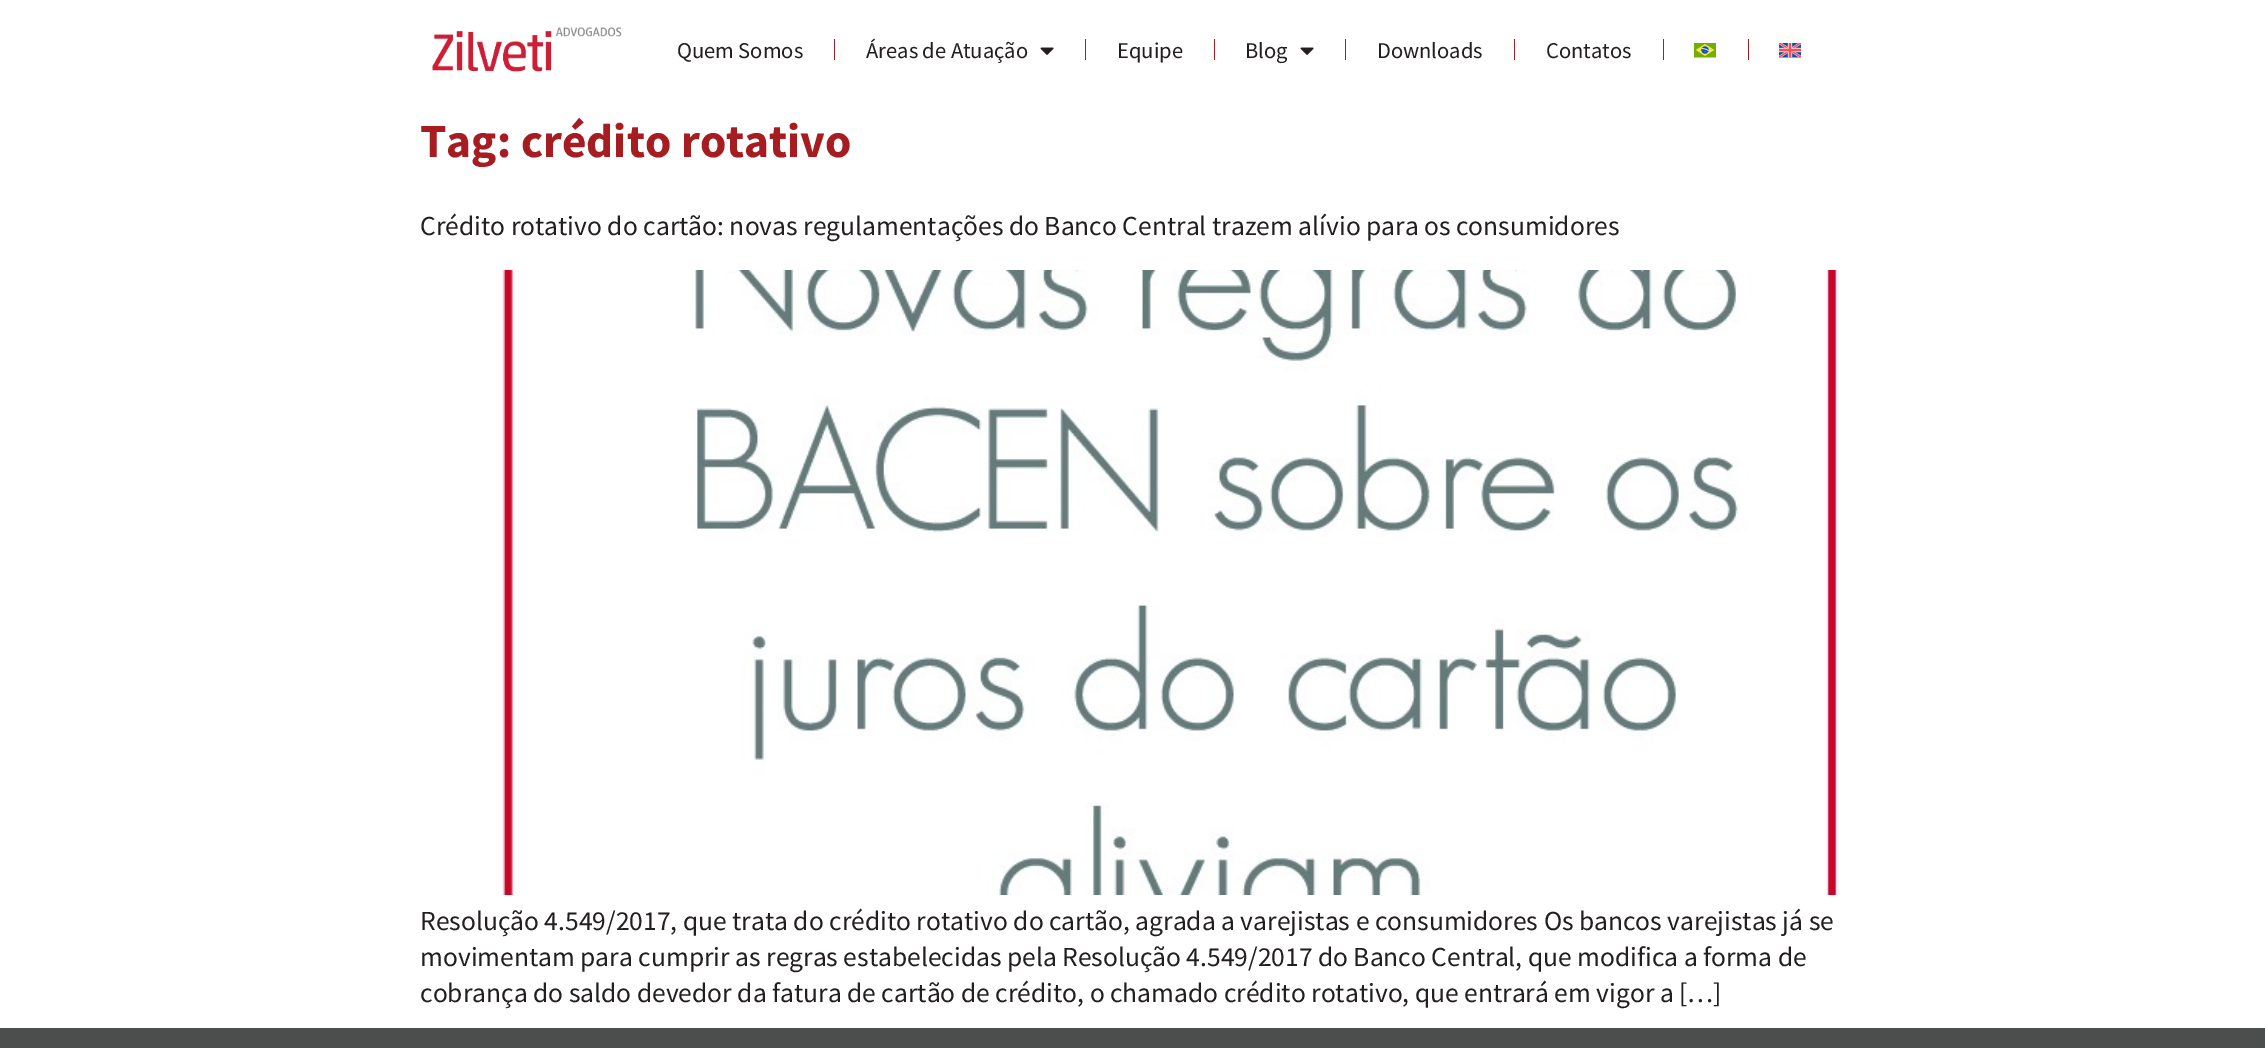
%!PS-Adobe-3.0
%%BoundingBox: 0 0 2265 1048
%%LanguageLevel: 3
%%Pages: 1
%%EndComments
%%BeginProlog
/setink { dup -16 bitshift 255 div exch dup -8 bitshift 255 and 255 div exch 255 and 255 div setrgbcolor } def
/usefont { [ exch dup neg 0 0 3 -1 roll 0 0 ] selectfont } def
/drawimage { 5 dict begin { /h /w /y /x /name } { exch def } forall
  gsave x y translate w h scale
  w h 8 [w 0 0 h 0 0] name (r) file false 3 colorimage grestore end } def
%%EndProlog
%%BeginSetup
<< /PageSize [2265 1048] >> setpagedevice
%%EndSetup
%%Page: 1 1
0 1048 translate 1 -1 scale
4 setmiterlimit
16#FFFFFF setink
0 0 2265 1048 rectfill
(img1.raw) 432 27 190 45 drawimage
/SourceSansPro-Regular 22.5 usefont
16#231F20 setink
677 58 moveto (Quem Somos) show
16#A61C20 setink
834 39 1 21 rectfill
16#231F20 setink
866 58 moveto (Áreas de Atuação) show
(img2.raw) 1040 47 14 8 drawimage
16#A61C20 setink
1085 39 1 21 rectfill
16#231F20 setink
1117 58 moveto (Equipe) show
16#A61C20 setink
1214 39 1 21 rectfill
16#231F20 setink
1245 58 moveto (Blog) show
(img2.raw) 1300 47 14 8 drawimage
16#A61C20 setink
1345 39 1 21 rectfill
16#231F20 setink
1377 58 moveto (Downloads) show
16#A61C20 setink
1514 39 1 21 rectfill
16#231F20 setink
1546 58 moveto (Contatos) show
16#A61C20 setink
1663 39 1 21 rectfill
(img3.raw) 1694 43 22 15 drawimage
1748 39 1 21 rectfill
(img4.raw) 1779 43 22 15 drawimage
/SourceSansPro-Bold 47.5 usefont
420 157 moveto (Tag: crédito rotativo) show
/SourceSansPro-Regular 27.5 usefont
16#231F20 setink
420 235 moveto (Crédito rotativo do cartão: novas regulamentações do Banco Central trazem alívio para os consumidores) show
(img5.raw) 501 270 1338 625 drawimage
[
    [(Resolução 4.549/2017, que trata do crédito rotativo do cartão, agrada a varejistas e consumidores Os bancos varejistas já se) 420 930]
    [(movimentam para cumprir as regras estabelecidas pela Resolução 4.549/2017 do Banco Central, que modifica a forma de) 420 966]
    [(cobrança do saldo devedor da fatura de cartão de crédito, o chamado crédito rotativo, que entrará em vigor a […]) 420 1002]
] { aload pop moveto show } forall
16#4C4E4D setink
0 1028 2265 20 rectfill
showpage
%%EOF
